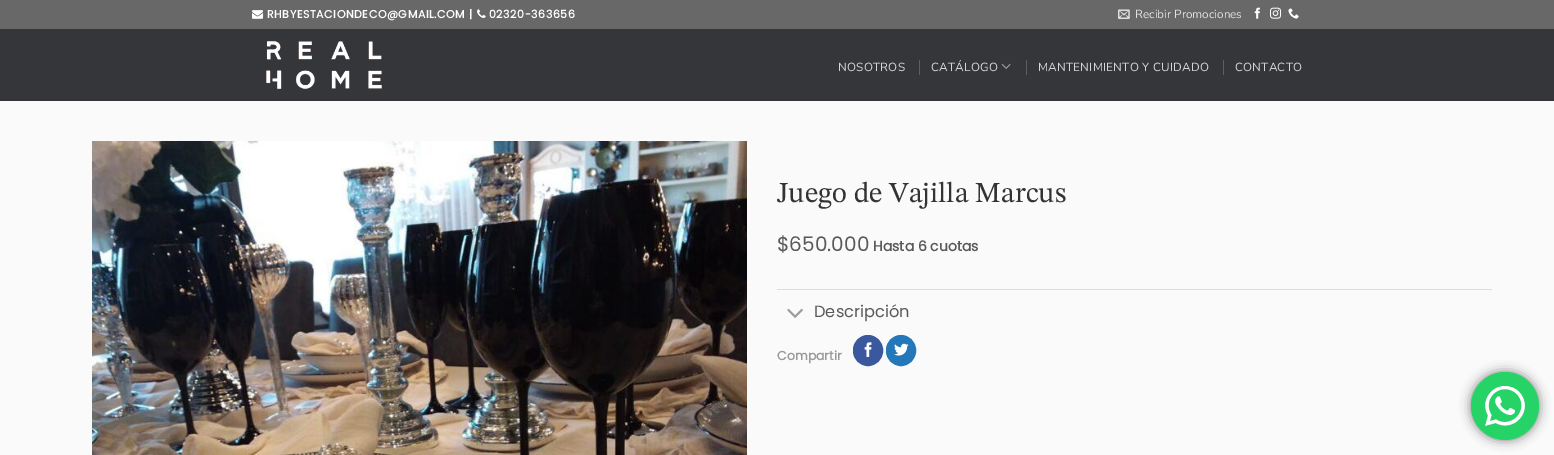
%!PS-Adobe-3.0
%%BoundingBox: 0 0 1554 455
%%LanguageLevel: 3
%%Pages: 1
%%EndComments
%%BeginProlog
/setink { dup -16 bitshift 255 div exch dup -8 bitshift 255 and 255 div exch 255 and 255 div setrgbcolor } def
/usefont { [ exch dup neg 0 0 3 -1 roll 0 0 ] selectfont } def
/setalpha { dup .setfillconstantalpha .setstrokeconstantalpha } def
/disc { newpath 0 360 arc closepath } def
/rrect { 5 dict begin { /r /h /w /y /x } { exch def } forall
  x r add y moveto x w add y 2 copy h add r arct x w add y h add x 1 index r arct
  x y h add x y r arct x y 2 copy exch w add exch r arct closepath end } def
/softshadow { 12 dict begin { /a /b /q /h /w /y /x } { exch def } forall gsave /was 0 def
  9 -2 -9 { dup b mul 4 div /e exch def 1 sub .425 mul 2.718 exch exp 1 add a .99 .min exch div /now exch def
    1 1 now sub 1 was sub div sub setalpha /was now def
    w h .min e 2 mul add 0 gt { x e sub y e sub w e 2 mul add h e 2 mul add
      q e add b .6 mul add w h .min 2 div e add .min 0 .max rrect fill } if } for grestore end } def
/drawimage { 5 dict begin { /h /w /y /x /name } { exch def } forall
  gsave x y translate w h scale
  w h 8 [w 0 0 h 0 0] name (r) file false 3 colorimage grestore end } def
%%EndProlog
%%BeginSetup
<< /PageSize [1554 455] /PageUsesTransparency true >> setpagedevice
%%EndSetup
%%Page: 1 1
0 .pushpdf14devicefilter
0 455 translate 1 -1 scale
4 setmiterlimit
16#FAFAFA setink
0 0 1554 455 rectfill
16#686868 setink
0 0 1554 29 rectfill
(img1.raw) 252 10 12 9 drawimage
/Poppins-Bold 11 usefont
16#FFFFFF setink
267 18 moveto 0.55 0 (RHBYESTACIONDECO@GMAIL.COM |) ashow
(img2.raw) 477 9 9 9 drawimage
489 18 moveto 0.55 0 (02320-363656) ashow
(img3.raw) 1118 9 12 10 drawimage
/Nunito-Regular 11.75 usefont
16#E1E1E1 setink
1135 18 moveto (Recibir Promociones) show
(img4.raw) 1254 7 6 12 drawimage
(img5.raw) 1270 7 12 12 drawimage
(img6.raw) 1288 8 11 11 drawimage
16#35363A setink
0 29 1554 72 rectfill
(img7.raw) 266 41 116 48 drawimage
16#D7D7D8 setink
838 71 moveto 0.25 0 (NOSOTROS) ashow
16#5D5E61 setink
919 60 1 15 rectfill
16#D7D7D8 setink
931 71 moveto 0.25 0 (CATÁLOGO) ashow
(img8.raw) 1001 63 10 6 drawimage
16#5D5E61 setink
1026 60 1 15 rectfill
16#D7D7D8 setink
1038 71 moveto 0.25 0 (MANTENIMIENTO Y CUIDADO) ashow
16#5D5E61 setink
1223 60 1 15 rectfill
16#D7D7D8 setink
1235 71 moveto 0.25 0 (CONTACTO) ashow
(img9.raw) 92 141 655 314 drawimage
/STIXTwoMath-Regular 28.75 usefont
16#333333 setink
777 202 moveto (Juego de Vajilla Marcus) show
/Poppins-Regular 20 usefont
16#595959 setink
777 251 moveto ($650.000) show
/Poppins-Bold 14 usefont
873 251 moveto (Hasta 6 cuotas) show
16#DDDDDD setink
777 289 715 1 rectfill
(img10.raw) 787 308 16 10 drawimage
/Poppins-Regular 16.25 usefont
16#595959 setink
814 317 moveto (Descripción) show
/Poppins-Bold 12.5 usefont
16#999999 setink
777 360 moveto (Compartir) show
16#3A589D setink
853.5 335.5 29 30 14.5 rrect gsave fill grestore
stroke
(img11.raw) 864 342 8 15 drawimage
16#2478BA setink
886.5 335.5 29 30 14.5 rrect gsave fill grestore
stroke
(img12.raw) 894 343 15 13 drawimage
16#000000 setink
1471 372 68 68 34 5.5 0.5 softshadow
16#25D366 setink
1505 406 34 disc fill
(img13.raw) 1485 386 40 40 drawimage
.poppdf14devicefilter showpage
%%EOF
